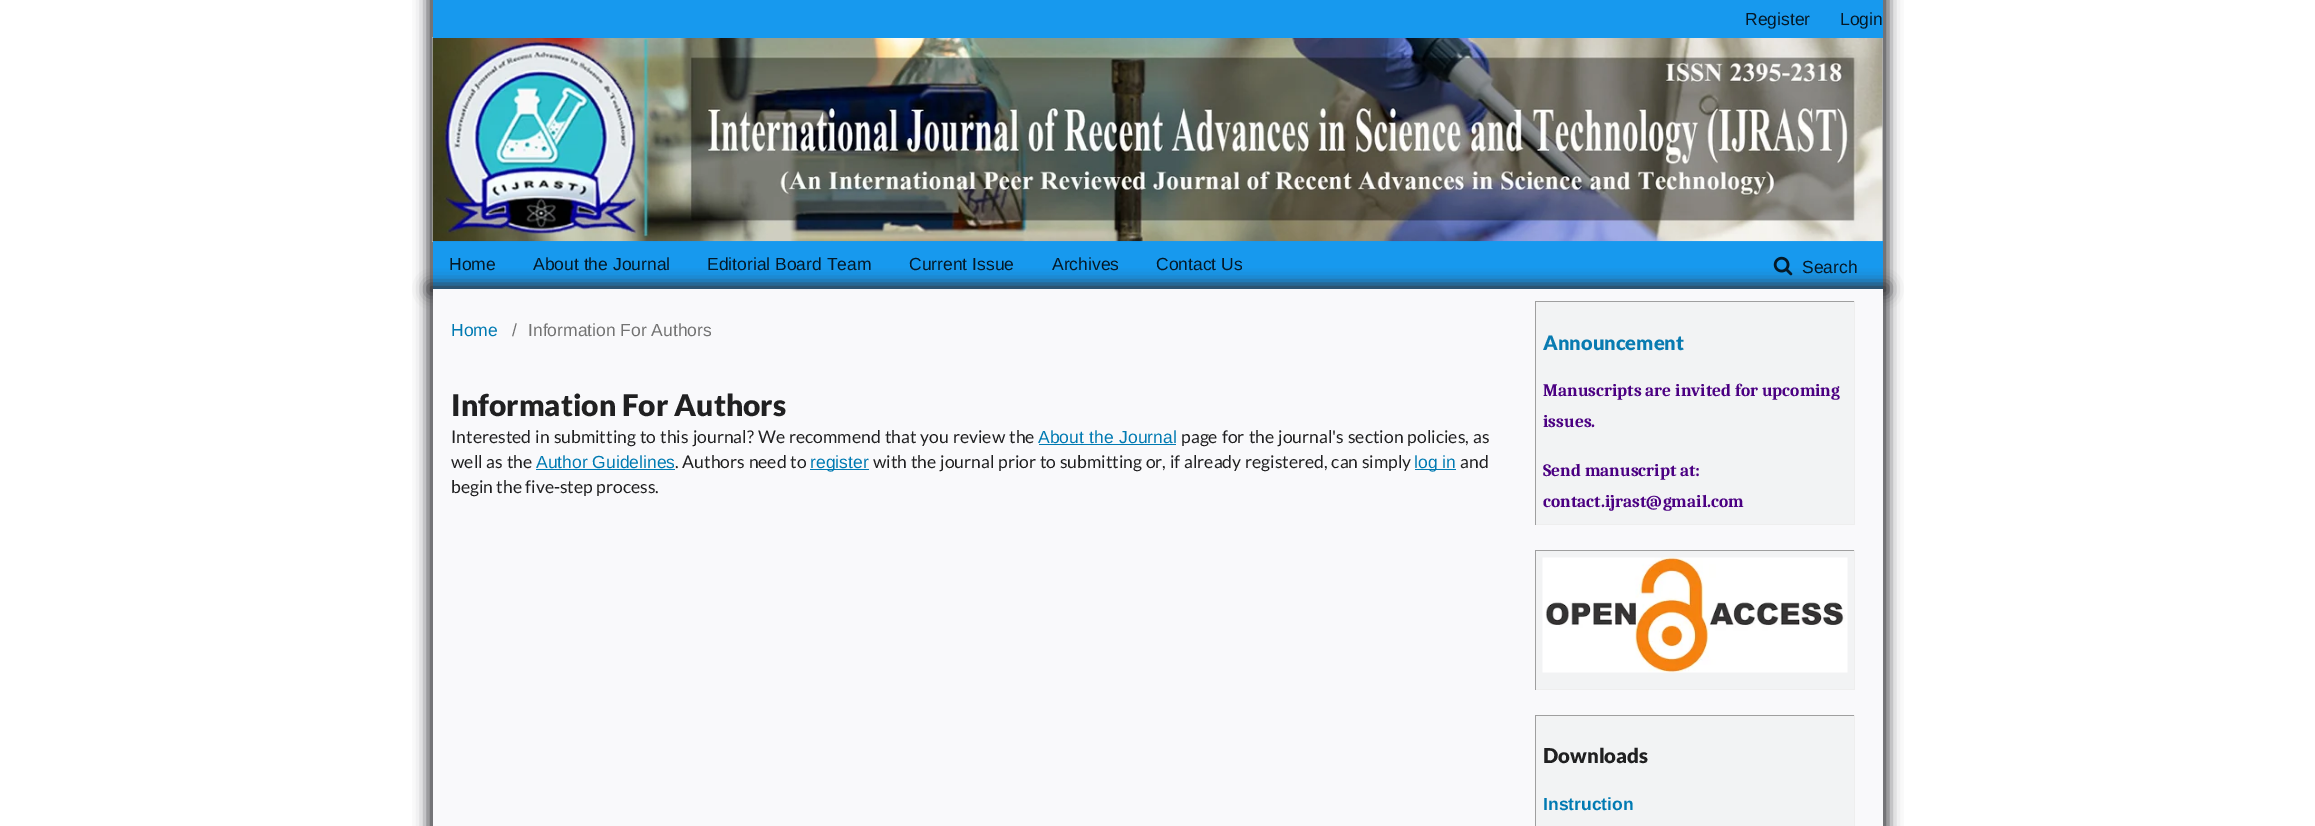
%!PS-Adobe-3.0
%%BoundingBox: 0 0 2315 826
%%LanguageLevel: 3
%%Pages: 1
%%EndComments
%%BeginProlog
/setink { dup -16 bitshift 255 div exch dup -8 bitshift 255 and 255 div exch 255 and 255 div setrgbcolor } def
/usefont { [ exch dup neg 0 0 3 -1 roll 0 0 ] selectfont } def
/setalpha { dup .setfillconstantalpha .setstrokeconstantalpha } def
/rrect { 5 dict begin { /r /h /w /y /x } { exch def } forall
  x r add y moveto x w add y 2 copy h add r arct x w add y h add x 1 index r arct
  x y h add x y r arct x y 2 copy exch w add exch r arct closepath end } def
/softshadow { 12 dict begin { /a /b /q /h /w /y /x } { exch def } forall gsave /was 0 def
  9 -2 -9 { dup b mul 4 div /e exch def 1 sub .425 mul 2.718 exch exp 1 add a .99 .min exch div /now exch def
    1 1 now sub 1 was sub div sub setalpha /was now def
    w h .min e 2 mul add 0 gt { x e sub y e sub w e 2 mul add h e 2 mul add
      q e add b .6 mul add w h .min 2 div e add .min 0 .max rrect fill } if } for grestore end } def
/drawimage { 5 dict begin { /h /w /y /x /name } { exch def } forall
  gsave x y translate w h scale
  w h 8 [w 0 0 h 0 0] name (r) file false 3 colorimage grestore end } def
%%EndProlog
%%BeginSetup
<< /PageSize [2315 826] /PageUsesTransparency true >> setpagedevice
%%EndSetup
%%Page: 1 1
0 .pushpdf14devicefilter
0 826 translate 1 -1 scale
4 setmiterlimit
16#FFFFFF setink
0 0 2315 826 rectfill
16#36363A setink
428 -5 1460 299 0 7 1 softshadow
16#1799EE setink
433 241 1450 48 rectfill
(img2.raw) 432 37 1451 205 drawimage
433 0 1450 38 rectfill
/LiberationSans-Regular 17.5 usefont
16#041826 setink
[
    [(Register) 1745 25]
    [(Login) 1840 25]
    [(Home) 449 270]
    [(About the Journal) 533 270]
    [(Editorial Board Team) 707 270]
    [(Current Issue) 909 270]
    [(Archives) 1052 270]
    [(Contact Us) 1156 270]
] { aload pop moveto show } forall
(img1.raw) 1773 256 20 20 drawimage
1802 273 moveto (Search) show
16#36363A setink
428 284 1460 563 0 7 1 softshadow
16#F9F9FB setink
433 289 1450 537 rectfill
16#007AB2 setink
451 336 moveto (Home) show
16#737373 setink
512 336 moveto (/) show
528 336 moveto (Information For Authors) show
/Lato-Black 30 usefont
16#202021 setink
451 416 moveto (Information For Authors) show
/Lato-Regular 17.5 usefont
451 443 moveto 0.75 0 32 (Interested in submitting to this journal? We recommend that you review the) widthshow
/LiberationSans-Regular 17.5 usefont
16#007AB2 setink
1038 443 moveto 0.75 0 32 (About the Journal) widthshow
1039 444 137 1 rectfill
/Lato-Regular 17.5 usefont
16#202021 setink
1181 443 moveto 0.75 0 32 (page for the journal's section policies, as) widthshow
451 468 moveto 0.4 0 32 (well as the) widthshow
/LiberationSans-Regular 17.5 usefont
16#007AB2 setink
536 468 moveto (Author Guidelines) show
536 469 139 1 rectfill
/Lato-Regular 17.5 usefont
16#202021 setink
675 468 moveto 0.4 0 32 (. Authors need to) widthshow
16#007AB2 setink
810 469 59 1 rectfill
/LiberationSans-Regular 17.5 usefont
810 468 moveto (register) show
/Lato-Regular 17.5 usefont
16#202021 setink
873 468 moveto 0.4 0 32 (with the journal prior to submitting or, if already registered, can simply) widthshow
16#007AB2 setink
1415 469 41 1 rectfill
/LiberationSans-Regular 17.5 usefont
1414 468 moveto (log in) show
/Lato-Regular 17.5 usefont
16#202021 setink
1460 468 moveto (and) show
451 493 moveto (begin the five-step process.) show
[
    [1536 302 318 222 16#F2F3F4]
    [1535 301 320 1 16#9F9F9F]
    [1854 301 1 224 16#EEEEEE]
    [1535 524 320 1 16#EEEEEE]
    [1535 301 1 224 16#9F9F9F]
] { aload pop setink rectfill } forall
/Lato-Black 20 usefont
16#097BB1 setink
1543 350 moveto (Announcement) show
/Caladea-Bold 17.5 usefont
16#4B0082 setink
[
    [(Manuscripts are invited for upcoming) 1543 396]
    [(issues.) 1543 427]
    [(Send manuscript at:) 1543 476]
    [(contact.ijrast@gmail.com) 1543 507]
] { aload pop moveto show } forall
[
    [1536 551 318 138 16#F2F3F4]
    [1535 550 320 1 16#9F9F9F]
    [1854 550 1 140 16#EEEEEE]
    [1535 689 320 1 16#EEEEEE]
    [1535 550 1 140 16#9F9F9F]
] { aload pop setink rectfill } forall
(img3.raw) 1542 557 306 116 drawimage
[
    [1536 716 318 110 16#F2F3F4]
    [1535 715 320 1 16#9F9F9F]
    [1854 715 1 111 16#EEEEEE]
    [1535 715 1 111 16#9F9F9F]
] { aload pop setink rectfill } forall
/Lato-Black 20.5 usefont
16#202021 setink
1543 763 moveto (Downloads) show
/LiberationSans-Bold 17.5 usefont
16#007AB2 setink
1543 810 moveto (Instruction) show
.poppdf14devicefilter showpage
%%EOF
